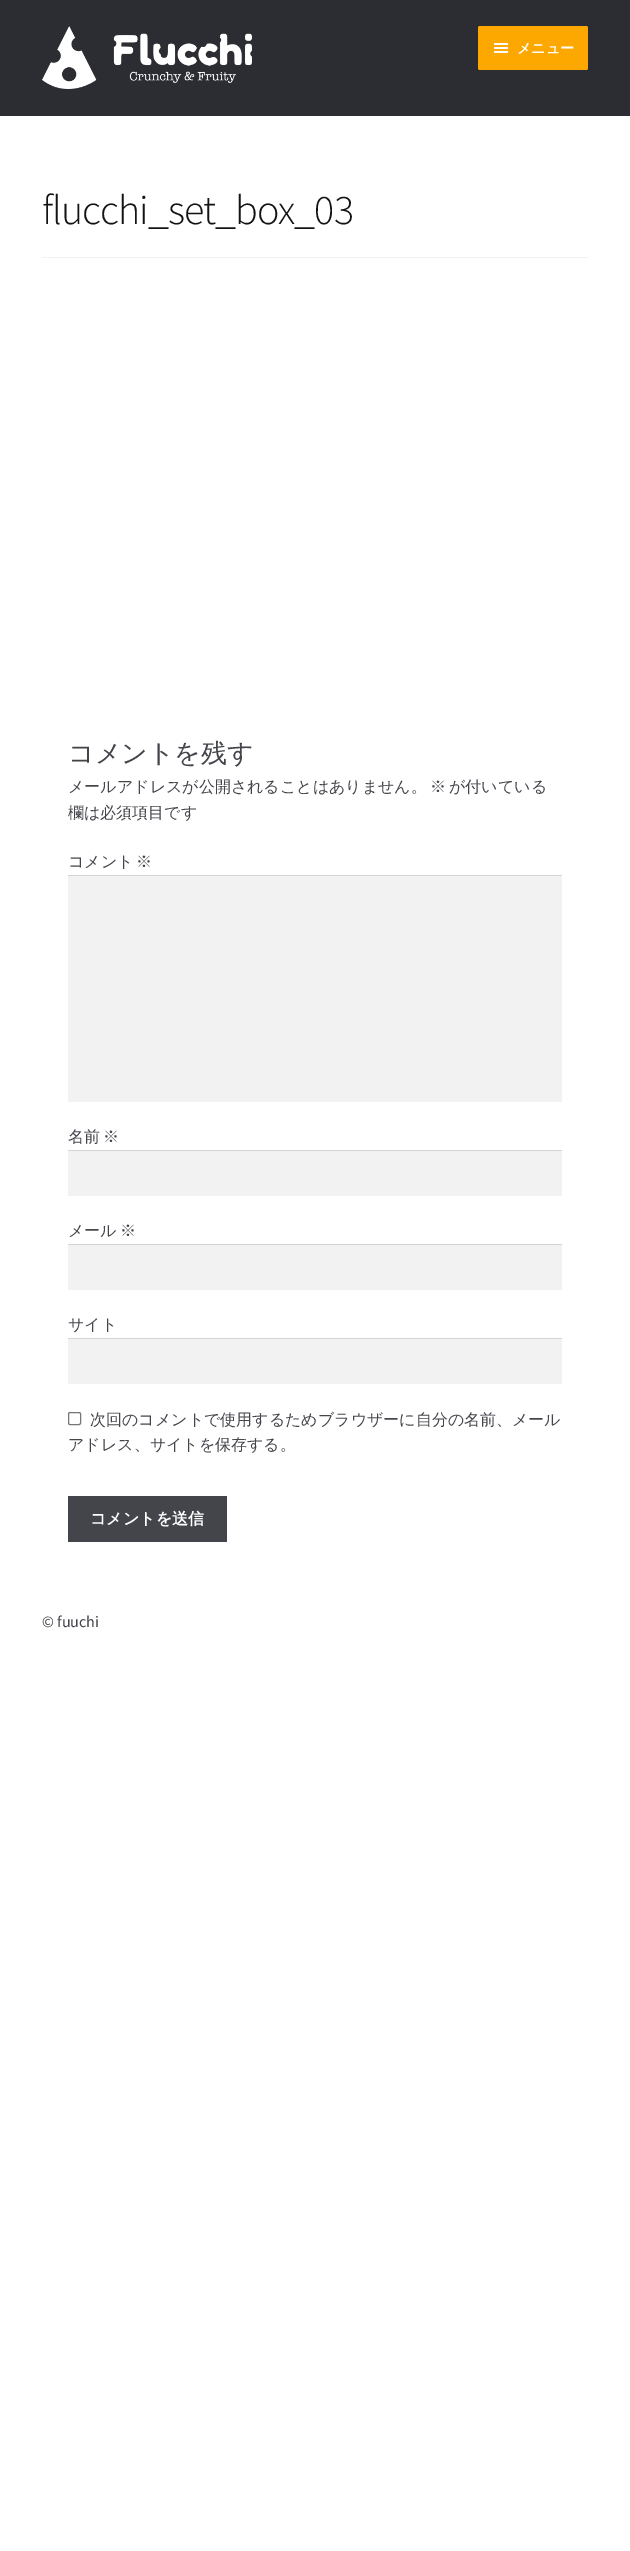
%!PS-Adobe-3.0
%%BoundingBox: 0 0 630 2551
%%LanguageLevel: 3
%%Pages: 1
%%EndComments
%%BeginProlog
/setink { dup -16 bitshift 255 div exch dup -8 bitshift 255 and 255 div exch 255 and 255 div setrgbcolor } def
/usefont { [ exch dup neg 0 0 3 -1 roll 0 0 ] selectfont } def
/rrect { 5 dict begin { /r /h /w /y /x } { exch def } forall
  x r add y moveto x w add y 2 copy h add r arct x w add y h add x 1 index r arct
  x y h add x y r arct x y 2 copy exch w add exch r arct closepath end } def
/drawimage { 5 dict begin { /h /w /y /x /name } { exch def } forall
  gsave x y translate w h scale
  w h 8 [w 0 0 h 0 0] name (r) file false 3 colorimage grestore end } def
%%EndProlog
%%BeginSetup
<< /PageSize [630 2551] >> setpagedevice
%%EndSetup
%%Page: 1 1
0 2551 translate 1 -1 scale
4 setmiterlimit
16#FFFFFF setink
0 0 630 2551 rectfill
16#2C2D33 setink
0 0 630 116 rectfill
(img1.raw) 42 26 210 63 drawimage
16#FCA800 setink
478 26 110 44 2 rrect fill
16#FFFFFF setink
494 43 14 2 1 rrect fill
494 47 14 2 1 rrect fill
/WenQuanYiZenHei-Bold 14 usefont
517 53 moveto (メニュー) show
494 51 14 2 1 rrect fill
16#F2F2F2 setink
42 257 546 1 rectfill
/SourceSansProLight-Light 42 usefont
16#131315 setink
42 224 moveto -1 0 (flucchi_set_box_03) ashow
/WenQuanYiZenHei-Medium 26 usefont
16#43454B setink
68 762 moveto (コメントを残す) show
/WenQuanYiZenHei-Medium 16 usefont
[
    [(メールアドレスが公開されることはありません。) 68 792]
    [(※) 430 792]
    [(が付いている) 449 792]
    [(欄は必須項目です) 68 818]
    [(コメント) 68 867]
    [(※) 136 867]
] { aload pop moveto show } forall
16#F2F2F2 setink
68 876 494 226 rectfill
16#D4D4D4 setink
68 875 494 1 rectfill
16#43454B setink
68 1142 moveto (名前) show
103 1142 moveto (※) show
16#F2F2F2 setink
68 1151 494 45 rectfill
16#D4D4D4 setink
68 1150 494 1 rectfill
16#43454B setink
68 1236 moveto (メール) show
120 1236 moveto (※) show
16#F2F2F2 setink
68 1245 494 45 rectfill
16#D4D4D4 setink
68 1244 494 1 rectfill
16#43454B setink
68 1330 moveto (サイト) show
16#F2F2F2 setink
68 1339 494 45 rectfill
16#D4D4D4 setink
68 1338 494 1 rectfill
16#767676 setink
68.5 1412.5 12 12 1.5 rrect stroke
16#43454B setink
90 1425 moveto (次回のコメントで使用するためブラウザーに自分の名前、メール) show
68 1450 moveto (アドレス、サイトを保存する。) show
68 1496 159 46 rectfill
/WenQuanYiZenHei-Bold 16 usefont
16#FFFFFF setink
90 1524 moveto (コメントを送信) show
/SourceSansPro-Regular 16 usefont
16#43454B setink
42 1627 moveto (© fuuchi) show
showpage
%%EOF
